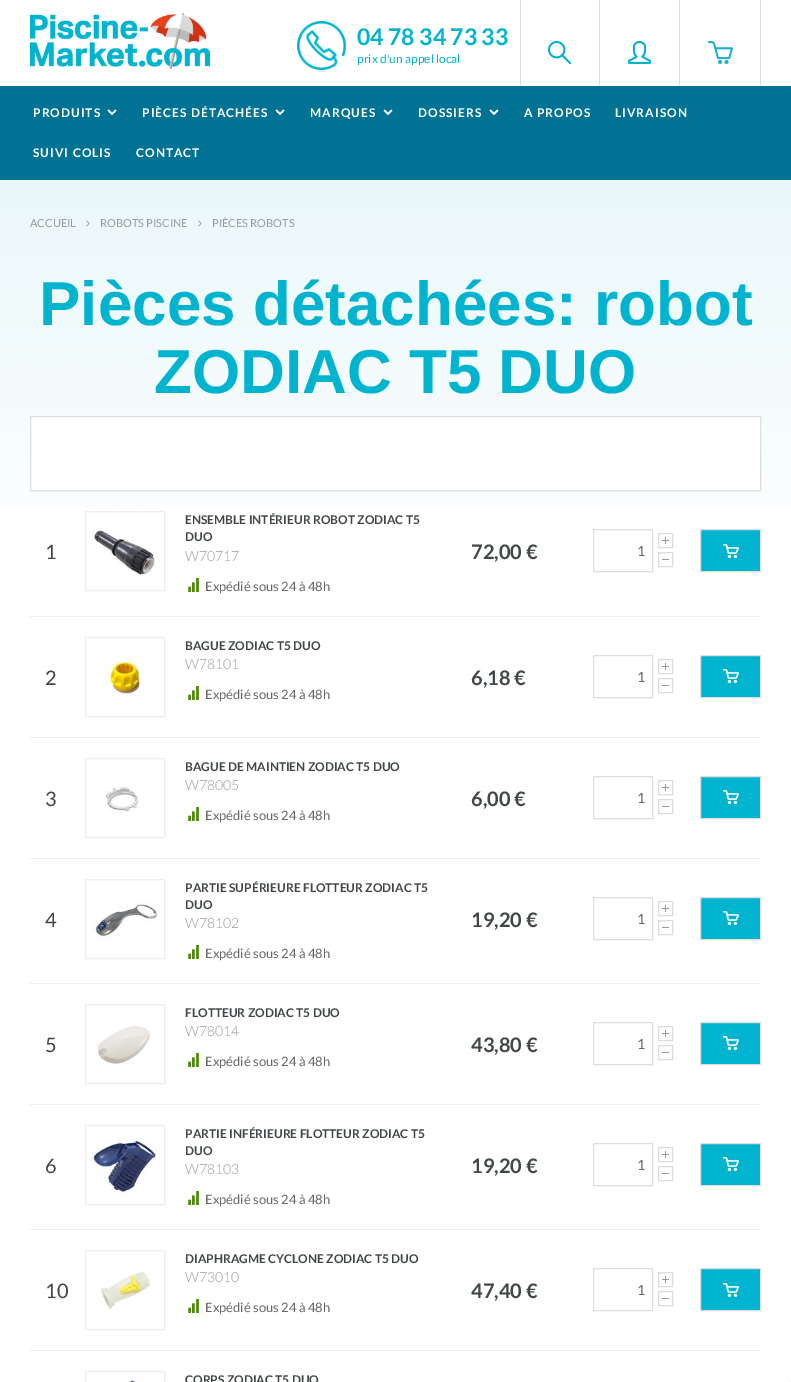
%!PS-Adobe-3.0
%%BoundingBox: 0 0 791 1382
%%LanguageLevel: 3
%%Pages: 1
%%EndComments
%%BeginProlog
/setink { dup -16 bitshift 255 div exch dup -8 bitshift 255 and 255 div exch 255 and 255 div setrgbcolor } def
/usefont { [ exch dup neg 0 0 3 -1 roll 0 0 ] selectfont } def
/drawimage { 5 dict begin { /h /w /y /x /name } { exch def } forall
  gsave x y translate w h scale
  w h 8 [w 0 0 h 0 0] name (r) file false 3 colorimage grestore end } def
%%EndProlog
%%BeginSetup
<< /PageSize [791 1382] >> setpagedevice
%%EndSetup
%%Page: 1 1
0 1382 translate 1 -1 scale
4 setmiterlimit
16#FFFFFF setink
0 0 791 1382 rectfill
(img1.raw) 30 13 180 56 drawimage
(img2.raw) 297 21 49 49 drawimage
/Lato-Bold 23 usefont
16#00B4CF setink
357 45 moveto (04 78 34 73 33) show
/Lato-Regular 12 usefont
357 63 moveto (prix d'un appel local) show
(img3.raw) 548 41 23 23 drawimage
16#DDDDDD setink
599 0 1 86 rectfill
520 0 1 86 rectfill
(img4.raw) 628 41 23 23 drawimage
679 0 1 86 rectfill
(img5.raw) 708 41 25 23 drawimage
760 0 1 86 rectfill
16#007294 setink
0 86 791 94 rectfill
/Lato-Bold 12 usefont
16#FFFFFF setink
33 117 moveto 1 0 (PRODUITS) ashow
(img6.raw) 107 109 10 7 drawimage
142 117 moveto 1 0 (PIÈCES DÉTACHÉES) ashow
(img6.raw) 275 109 10 7 drawimage
310 117 moveto 1 0 (MARQUES) ashow
(img6.raw) 383 109 10 7 drawimage
418 117 moveto 1 0 (DOSSIERS) ashow
(img6.raw) 489 109 10 7 drawimage
524 117 moveto 1 0 (A PROPOS) ashow
615 117 moveto 1 0 (LIVRAISON) ashow
33 157 moveto 1 0 (SUIVI COLIS) ashow
136 157 moveto 1 0 (CONTACT) ashow
(img7.raw) 0 180 791 327 drawimage
/Lato-Regular 11 usefont
16#999999 setink
30 227 moveto (ACCUEIL) show
(img8.raw) 86 220 4 7 drawimage
100 227 moveto (ROBOTS PISCINE) show
(img9.raw) 198 220 4 7 drawimage
212 227 moveto (PIÈCES ROBOTS) show
/LiberationSans-Bold 62 usefont
16#00B4CF setink
39 325 moveto (Pièces détachées: robot) show
154 393 moveto (ZODIAC T5 DUO) show
16#FFFFFF setink
30.5 416.5 moveto 760.5 416.5 lineto 760.5 490.5 lineto 30.5 490.5 lineto closepath gsave fill grestore
16#DEDEDE setink
stroke
16#EEEEEE setink
30 616 731 1 rectfill
/Lato-Regular 20 usefont
16#414748 setink
45 559 moveto (1) show
16#EEEEEE setink
85.5 511.5 79 79 rectstroke
(img10.raw) 91 528 65 49 drawimage
/Lato-Bold 12 usefont
16#414748 setink
185 524 moveto (ENSEMBLE INTÉRIEUR ROBOT ZODIAC T5) show
185 541 moveto (DUO) show
/Lato-Light 14 usefont
16#999999 setink
185 561 moveto (W70717) show
(img11.raw) 188 578 11 14 drawimage
/Lato-Regular 13 usefont
16#666666 setink
205 591 moveto (Expédié sous 24 à 48h) show
/Lato-Bold 20 usefont
16#414748 setink
471 559 moveto (72,00 €) show
16#DEDEDE setink
593.5 529.5 59 42 rectstroke
/Lato-Regular 14 usefont
16#666666 setink
637 556 moveto (1) show
(img12.raw) 662 537 7 7 drawimage
16#DDDDDD setink
658.5 533.5 14 14 rectstroke
16#999999 setink
662 559 7 1 rectfill
16#DDDDDD setink
658.5 552.5 14 14 rectstroke
16#00B4CF setink
701 530 59 41 rectfill
(img13.raw) 723 544 16 14 drawimage
16#DEDEDE setink
700.5 529.5 60 42 rectstroke
16#EEEEEE setink
30 737 731 1 rectfill
/Lato-Regular 20 usefont
16#414748 setink
45 685 moveto (2) show
16#EEEEEE setink
85.5 637.5 79 79 rectstroke
(img14.raw) 101 654 43 44 drawimage
/Lato-Bold 12 usefont
16#414748 setink
185 650 moveto (BAGUE ZODIAC T5 DUO) show
/Lato-Light 14 usefont
16#999999 setink
185 669 moveto (W78101) show
(img11.raw) 188 686 11 14 drawimage
/Lato-Regular 13 usefont
16#666666 setink
205 699 moveto (Expédié sous 24 à 48h) show
/Lato-Bold 20 usefont
16#414748 setink
471 685 moveto (6,18 €) show
16#DEDEDE setink
593.5 655.5 59 42 rectstroke
/Lato-Regular 14 usefont
16#666666 setink
637 682 moveto (1) show
(img12.raw) 662 663 7 7 drawimage
16#DDDDDD setink
658.5 659.5 14 14 rectstroke
16#999999 setink
662 685 7 1 rectfill
16#DDDDDD setink
658.5 678.5 14 14 rectstroke
16#00B4CF setink
701 656 59 41 rectfill
(img13.raw) 723 669 16 14 drawimage
16#DEDEDE setink
700.5 655.5 60 42 rectstroke
16#EEEEEE setink
30 858 731 1 rectfill
/Lato-Regular 20 usefont
16#414748 setink
45 806 moveto (3) show
16#EEEEEE setink
85.5 758.5 79 79 rectstroke
(img15.raw) 104 786 36 27 drawimage
/Lato-Bold 12 usefont
16#414748 setink
185 771 moveto (BAGUE DE MAINTIEN ZODIAC T5 DUO) show
/Lato-Light 14 usefont
16#999999 setink
185 790 moveto (W78005) show
(img11.raw) 188 807 11 14 drawimage
/Lato-Regular 13 usefont
16#666666 setink
205 820 moveto (Expédié sous 24 à 48h) show
/Lato-Bold 20 usefont
16#414748 setink
471 806 moveto (6,00 €) show
16#DEDEDE setink
593.5 776.5 59 42 rectstroke
/Lato-Regular 14 usefont
16#666666 setink
637 803 moveto (1) show
(img12.raw) 662 784 7 7 drawimage
16#DDDDDD setink
658.5 780.5 14 14 rectstroke
16#999999 setink
662 806 7 1 rectfill
16#DDDDDD setink
658.5 799.5 14 14 rectstroke
16#00B4CF setink
701 777 59 41 rectfill
(img13.raw) 723 790 16 14 drawimage
16#DEDEDE setink
700.5 776.5 60 42 rectstroke
16#EEEEEE setink
30 983 731 1 rectfill
/Lato-Regular 20 usefont
16#414748 setink
45 927 moveto (4) show
16#EEEEEE setink
85.5 879.5 79 79 rectstroke
(img16.raw) 91 901 68 39 drawimage
/Lato-Bold 12 usefont
16#414748 setink
185 892 moveto (PARTIE SUPÉRIEURE FLOTTEUR ZODIAC T5) show
185 909 moveto (DUO) show
/Lato-Light 14 usefont
16#999999 setink
185 928 moveto (W78102) show
(img11.raw) 188 945 11 14 drawimage
/Lato-Regular 13 usefont
16#666666 setink
205 958 moveto (Expédié sous 24 à 48h) show
/Lato-Bold 20 usefont
16#414748 setink
471 927 moveto (19,20 €) show
16#DEDEDE setink
593.5 897.5 59 42 rectstroke
/Lato-Regular 14 usefont
16#666666 setink
637 924 moveto (1) show
(img12.raw) 662 905 7 7 drawimage
16#DDDDDD setink
658.5 901.5 14 14 rectstroke
16#999999 setink
662 927 7 1 rectfill
16#DDDDDD setink
658.5 920.5 14 14 rectstroke
16#00B4CF setink
701 898 59 41 rectfill
(img13.raw) 723 911 16 14 drawimage
16#DEDEDE setink
700.5 897.5 60 42 rectstroke
16#EEEEEE setink
30 1104 731 1 rectfill
/Lato-Regular 20 usefont
16#414748 setink
45 1052 moveto (5) show
16#EEEEEE setink
85.5 1004.5 79 79 rectstroke
(img17.raw) 91 1025 60 39 drawimage
/Lato-Bold 12 usefont
16#414748 setink
185 1017 moveto (FLOTTEUR ZODIAC T5 DUO) show
/Lato-Light 14 usefont
16#999999 setink
185 1036 moveto (W78014) show
(img11.raw) 188 1053 11 14 drawimage
/Lato-Regular 13 usefont
16#666666 setink
205 1066 moveto (Expédié sous 24 à 48h) show
/Lato-Bold 20 usefont
16#414748 setink
471 1052 moveto (43,80 €) show
16#DEDEDE setink
593.5 1022.5 59 42 rectstroke
/Lato-Regular 14 usefont
16#666666 setink
637 1049 moveto (1) show
(img12.raw) 662 1030 7 7 drawimage
16#DDDDDD setink
658.5 1026.5 14 14 rectstroke
16#999999 setink
662 1052 7 1 rectfill
16#DDDDDD setink
658.5 1045.5 14 14 rectstroke
16#00B4CF setink
701 1023 59 41 rectfill
(img13.raw) 723 1036 16 14 drawimage
16#DEDEDE setink
700.5 1022.5 60 42 rectstroke
16#EEEEEE setink
30 1229 731 1 rectfill
/Lato-Regular 20 usefont
16#414748 setink
45 1173 moveto (6) show
16#EEEEEE setink
85.5 1125.5 79 79 rectstroke
(img18.raw) 91 1137 66 60 drawimage
/Lato-Bold 12 usefont
16#414748 setink
185 1138 moveto (PARTIE INFÉRIEURE FLOTTEUR ZODIAC T5) show
185 1155 moveto (DUO) show
/Lato-Light 14 usefont
16#999999 setink
185 1174 moveto (W78103) show
(img11.raw) 188 1191 11 14 drawimage
/Lato-Regular 13 usefont
16#666666 setink
205 1204 moveto (Expédié sous 24 à 48h) show
/Lato-Bold 20 usefont
16#414748 setink
471 1173 moveto (19,20 €) show
16#DEDEDE setink
593.5 1143.5 59 42 rectstroke
/Lato-Regular 14 usefont
16#666666 setink
637 1170 moveto (1) show
(img12.raw) 662 1151 7 7 drawimage
16#DDDDDD setink
658.5 1147.5 14 14 rectstroke
16#999999 setink
662 1173 7 1 rectfill
16#DDDDDD setink
658.5 1166.5 14 14 rectstroke
16#00B4CF setink
701 1144 59 41 rectfill
(img13.raw) 723 1157 16 14 drawimage
16#DEDEDE setink
700.5 1143.5 60 42 rectstroke
16#EEEEEE setink
30 1350 731 1 rectfill
/Lato-Regular 20 usefont
16#414748 setink
45 1298 moveto (10) show
16#EEEEEE setink
85.5 1250.5 79 79 rectstroke
(img19.raw) 100 1269 51 42 drawimage
/Lato-Bold 12 usefont
16#414748 setink
185 1263 moveto (DIAPHRAGME CYCLONE ZODIAC T5 DUO) show
/Lato-Light 14 usefont
16#999999 setink
185 1282 moveto (W73010) show
(img11.raw) 188 1299 11 14 drawimage
/Lato-Regular 13 usefont
16#666666 setink
205 1312 moveto (Expédié sous 24 à 48h) show
/Lato-Bold 20 usefont
16#414748 setink
471 1298 moveto (47,40 €) show
16#DEDEDE setink
593.5 1268.5 59 42 rectstroke
/Lato-Regular 14 usefont
16#666666 setink
637 1295 moveto (1) show
(img12.raw) 662 1276 7 7 drawimage
16#DDDDDD setink
658.5 1272.5 14 14 rectstroke
16#999999 setink
662 1298 7 1 rectfill
16#DDDDDD setink
658.5 1291.5 14 14 rectstroke
16#00B4CF setink
701 1269 59 41 rectfill
(img13.raw) 723 1283 16 14 drawimage
16#DEDEDE setink
700.5 1268.5 60 42 rectstroke
16#EEEEEE setink
85.5 1371.5 79 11 rectstroke
(img20.raw) 127 1377 19 5 drawimage
/Lato-Bold 12 usefont
16#414748 setink
185 1384 moveto (CORPS ZODIAC T5 DUO) show
16#F5F5F5 setink
789 1380 2 2 rectfill
showpage
%%EOF
